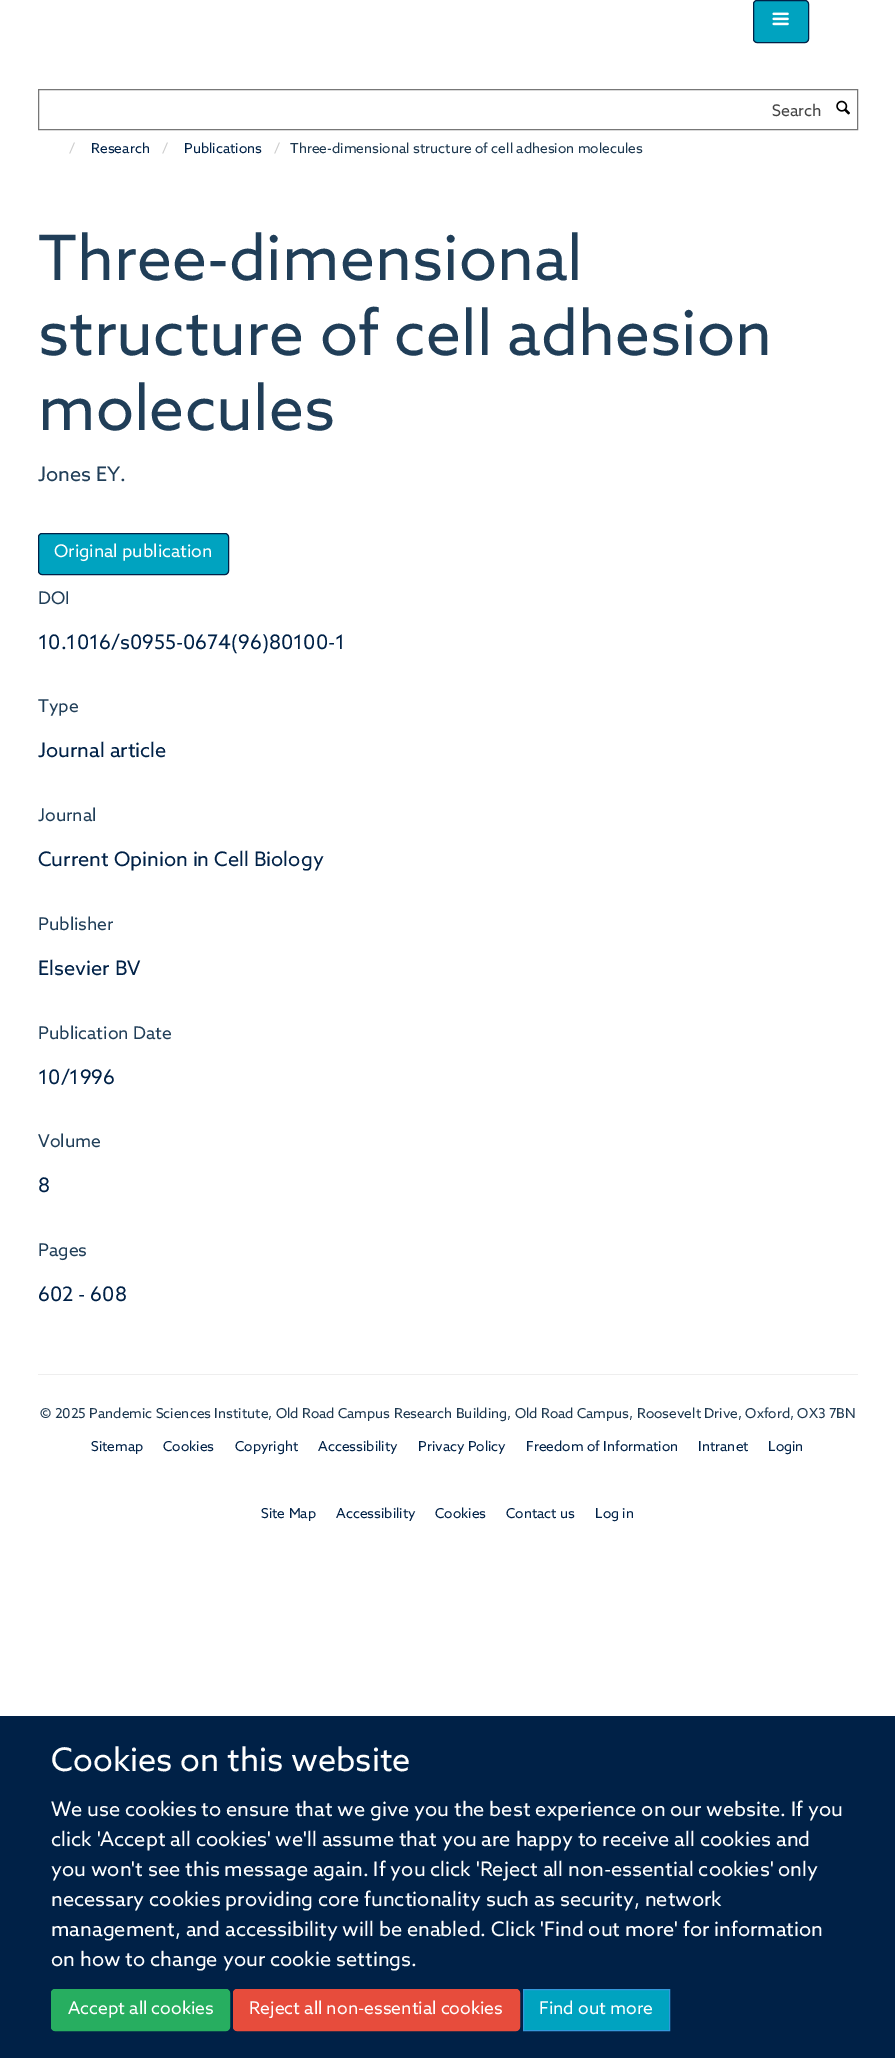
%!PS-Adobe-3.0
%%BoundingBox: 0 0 895 2058
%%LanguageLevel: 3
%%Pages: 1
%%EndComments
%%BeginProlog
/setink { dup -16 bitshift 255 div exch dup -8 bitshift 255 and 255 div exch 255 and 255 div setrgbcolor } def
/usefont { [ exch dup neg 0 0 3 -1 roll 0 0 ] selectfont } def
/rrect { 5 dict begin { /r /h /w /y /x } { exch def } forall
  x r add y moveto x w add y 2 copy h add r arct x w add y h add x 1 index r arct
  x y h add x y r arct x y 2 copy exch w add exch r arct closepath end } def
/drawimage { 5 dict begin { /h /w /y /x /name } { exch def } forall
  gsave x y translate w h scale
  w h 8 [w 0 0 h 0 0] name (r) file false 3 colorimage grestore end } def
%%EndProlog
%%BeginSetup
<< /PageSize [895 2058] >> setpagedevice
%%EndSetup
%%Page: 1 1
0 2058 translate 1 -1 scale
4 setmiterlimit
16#FFFFFF setink
0 0 895 2058 rectfill
16#00A3C0 setink
753.5 0.5 55 42 3.5 rrect gsave fill grestore
16#002147 setink
stroke
(img1.raw) 772 12 17 14 drawimage
16#777777 setink
38.5 89.5 819 40 rectstroke
/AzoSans-Regular 16 usefont
16#444444 setink
772 116 moveto (Search) show
(img2.raw) 836 100 14 15 drawimage
/AzoSans-Regular 13.75 usefont
16#CCCCCC setink
69 153 moveto (/) show
16#002147 setink
91 153 moveto (Research) show
16#CCCCCC setink
162 153 moveto (/) show
16#002147 setink
184 153 moveto (Publications) show
16#CCCCCC setink
274 153 moveto (/) show
16#1D3850 setink
290 153 moveto (Three-dimensional structure of cell adhesion molecules) show
/AzoSans-Regular 62.5 usefont
16#203E58 setink
[
    [(Three-dimensional) 38 280]
    [(structure of cell adhesion) 38 355]
    [(molecules) 38 430]
] { aload pop moveto show } forall
/AzoSans-Regular 20 usefont
38 481 moveto (Jones EY.) show
16#00A3C0 setink
38.5 533.5 190 41 3.5 rrect gsave fill grestore
16#002147 setink
stroke
/AzoSans-Regular 17.5 usefont
16#FFFFFF setink
54 557 moveto (Original publication) show
16#203E58 setink
38 604 moveto (DOI) show
/AzoSans-Regular 20 usefont
16#002147 setink
38 649 moveto (10.1016/s0955-0674\(96\)80100-1) show
/AzoSans-Regular 17.5 usefont
16#203E58 setink
38 712 moveto (Type) show
/AzoSans-Regular 20 usefont
16#002147 setink
38 757 moveto (Journal article) show
/AzoSans-Regular 17.5 usefont
16#203E58 setink
38 821 moveto (Journal) show
/AzoSans-Regular 20 usefont
16#002147 setink
38 866 moveto (Current Opinion in Cell Biology) show
/AzoSans-Regular 17.5 usefont
16#203E58 setink
38 930 moveto (Publisher) show
/AzoSans-Regular 20 usefont
16#002147 setink
38 975 moveto (Elsevier BV) show
/AzoSans-Regular 17.5 usefont
16#203E58 setink
38 1039 moveto (Publication Date) show
/AzoSans-Regular 20 usefont
16#002147 setink
38 1084 moveto (10/1996) show
/AzoSans-Regular 17.5 usefont
16#203E58 setink
38 1147 moveto (Volume) show
/AzoSans-Regular 20 usefont
16#002147 setink
38 1192 moveto (8) show
/AzoSans-Regular 17.5 usefont
16#203E58 setink
38 1256 moveto (Pages) show
/AzoSans-Regular 20 usefont
16#002147 setink
38 1301 moveto (602 - 608) show
16#EEEEEE setink
38 1374 820 1 rectfill
/AzoSans-Regular 13.75 usefont
16#1D3850 setink
40 1418 moveto (© 2025 Pandemic Sciences Institute, Old Road Campus Research Building, Old Road Campus, Roosevelt Drive, Oxford, OX3 7BN) show
16#002147 setink
[
    [(Sitemap) 91 1451]
    [(Cookies) 163 1451]
    [(Copyright) 235 1451]
    [(Accessibility) 318 1451]
    [(Privacy Policy) 418 1451]
    [(Freedom of Information) 526 1451]
    [(Intranet) 698 1451]
    [(Login) 768 1451]
    [(Site Map) 261 1518]
    [(Accessibility) 336 1518]
    [(Cookies) 435 1518]
    [(Contact us) 506 1518]
    [(Log in) 595 1518]
] { aload pop moveto show } forall
0 1716 895 342 rectfill
/AzoSans-Regular 32.5 usefont
16#FFFFFF setink
51 1771 moveto (Cookies on this website) show
/AzoSans-Regular 20 usefont
[
    [(We use cookies to ensure that we give you the best experience on our website. If you) 51 1816]
    [(click 'Accept all cookies' we'll assume that you are happy to receive all cookies and) 51 1846]
    [(you won't see this message again. If you click 'Reject all non-essential cookies' only) 51 1876]
    [(necessary cookies providing core functionality such as security, network) 51 1906]
    [(management, and accessibility will be enabled. Click 'Find out more' for information) 51 1936]
    [(on how to change your cookie settings.) 51 1966]
] { aload pop moveto show } forall
16#27AE60 setink
51.5 1989.5 178 41 3.5 rrect gsave fill grestore
stroke
/AzoSans-Regular 17.5 usefont
16#FFFFFF setink
68 2014 moveto (Accept all cookies) show
16#E74C3C setink
233.5 1989.5 286 41 3.5 rrect gsave fill grestore
stroke
16#FFFFFF setink
249 2014 moveto (Reject all non-essential cookies) show
16#00A3C0 setink
523.5 1989.5 moveto 669.5 1989.5 lineto 669.5 2030.5 lineto 523.5 2030.5 lineto closepath gsave fill grestore
16#3498DB setink
stroke
16#FFFFFF setink
539 2014 moveto (Find out more) show
showpage
%%EOF
